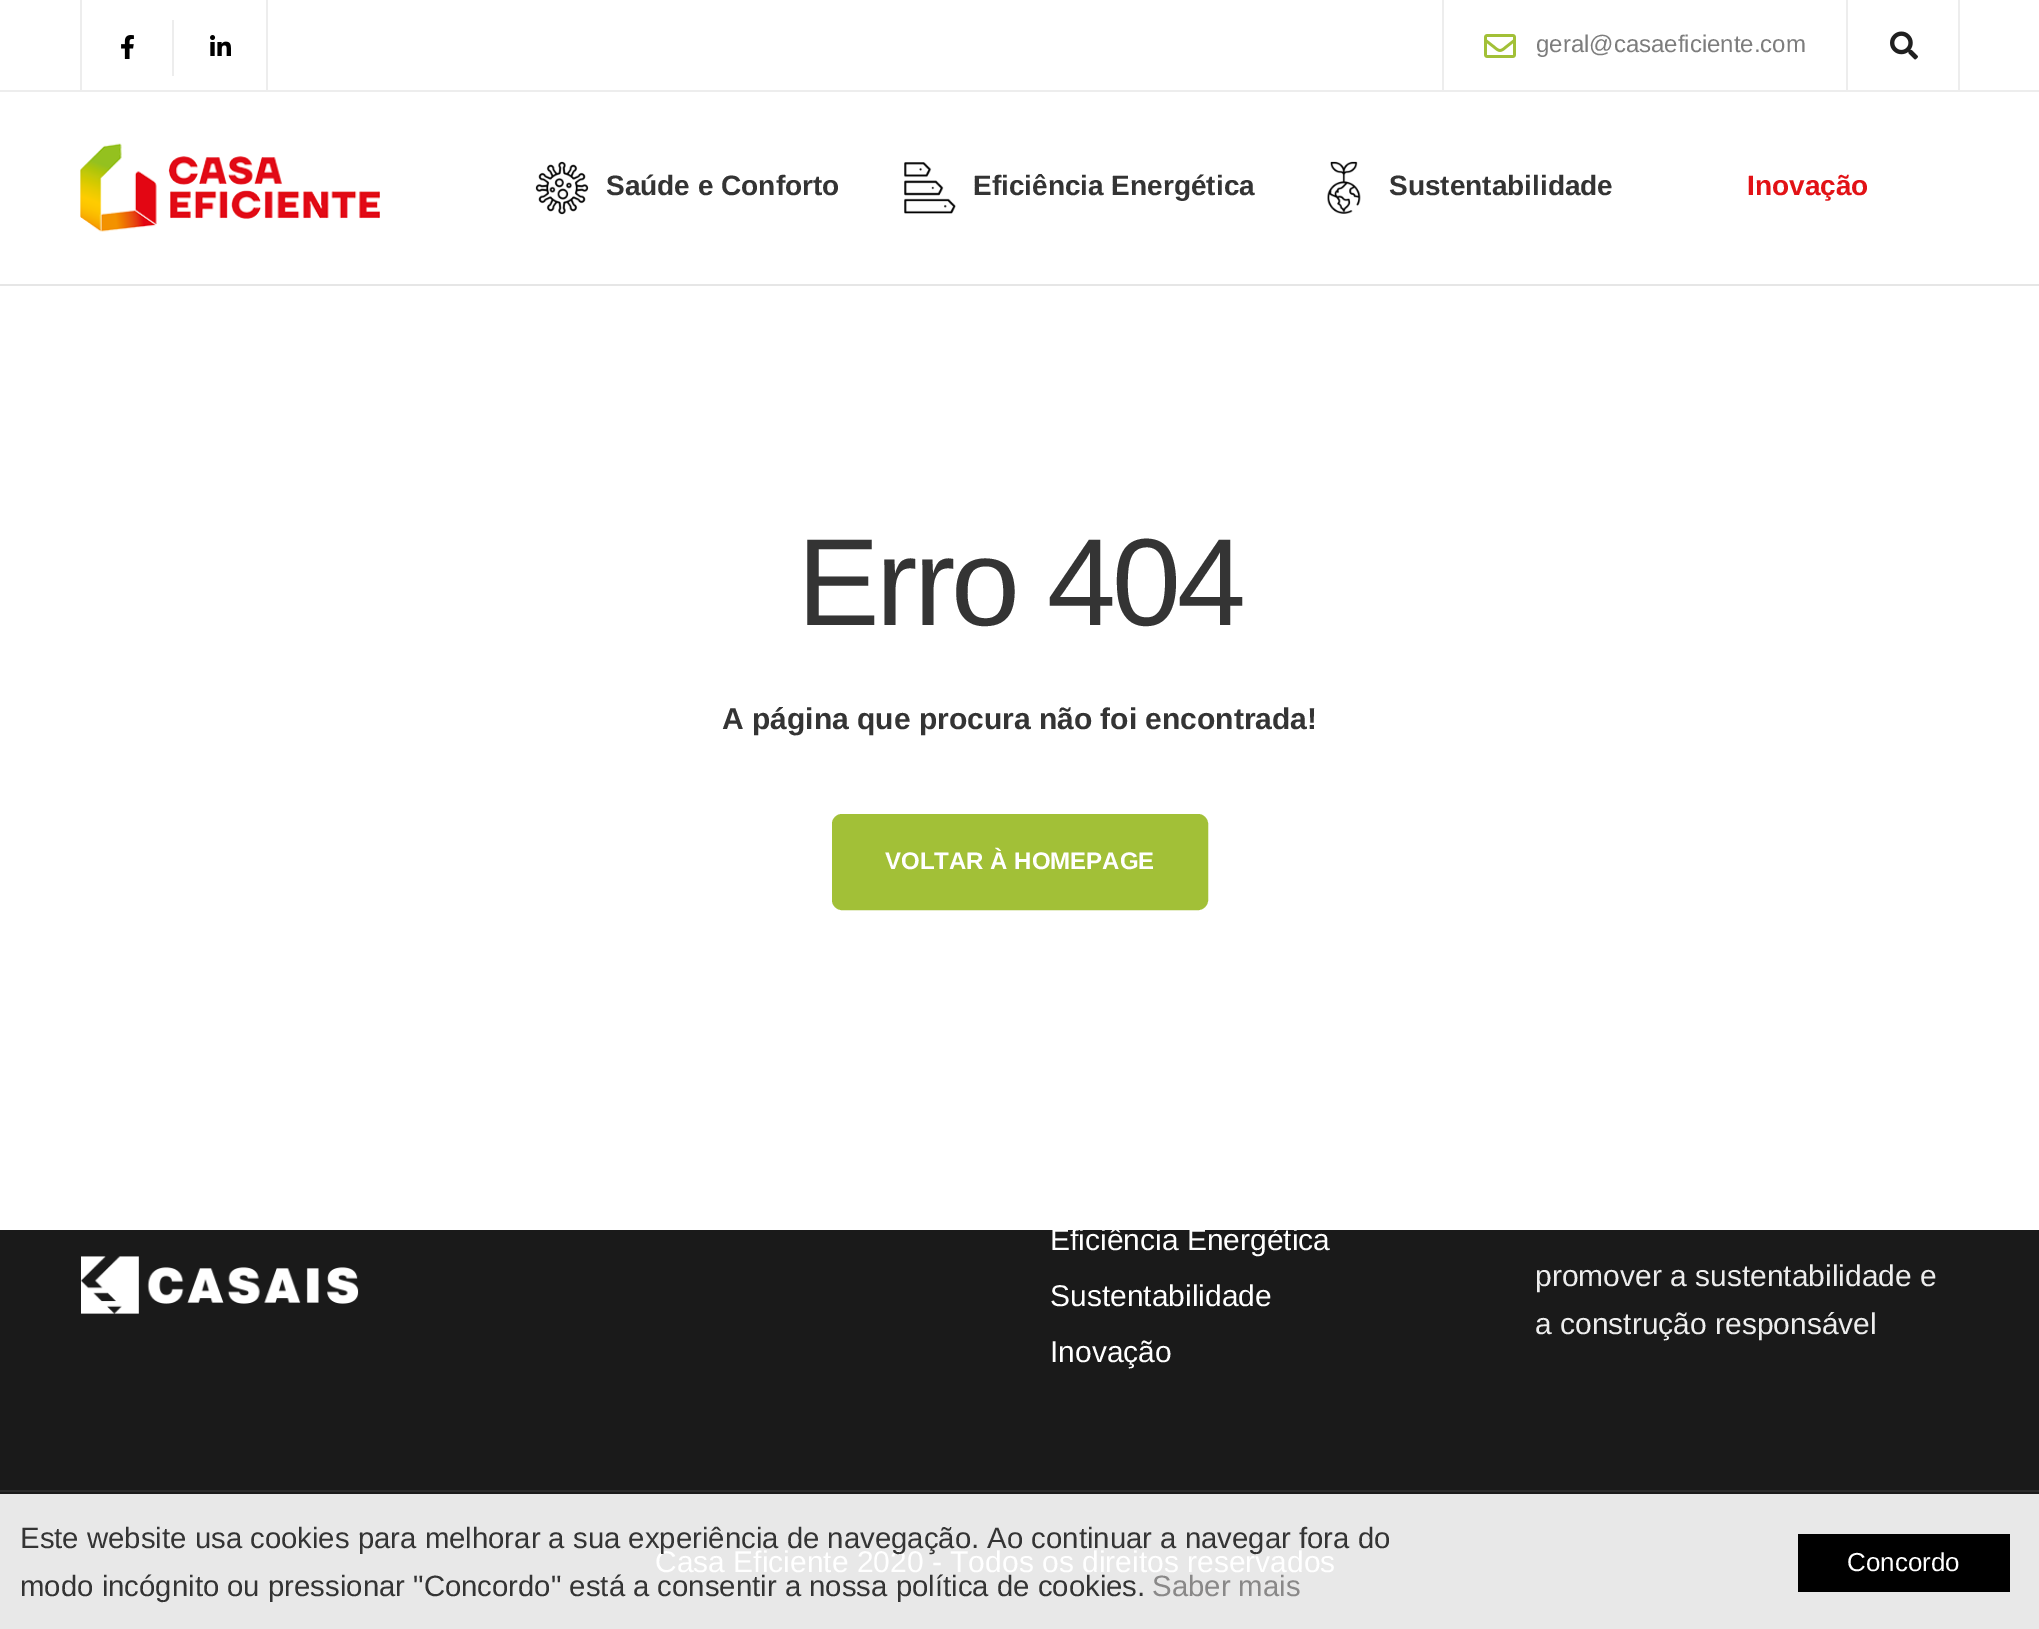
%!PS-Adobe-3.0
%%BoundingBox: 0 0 2039 1629
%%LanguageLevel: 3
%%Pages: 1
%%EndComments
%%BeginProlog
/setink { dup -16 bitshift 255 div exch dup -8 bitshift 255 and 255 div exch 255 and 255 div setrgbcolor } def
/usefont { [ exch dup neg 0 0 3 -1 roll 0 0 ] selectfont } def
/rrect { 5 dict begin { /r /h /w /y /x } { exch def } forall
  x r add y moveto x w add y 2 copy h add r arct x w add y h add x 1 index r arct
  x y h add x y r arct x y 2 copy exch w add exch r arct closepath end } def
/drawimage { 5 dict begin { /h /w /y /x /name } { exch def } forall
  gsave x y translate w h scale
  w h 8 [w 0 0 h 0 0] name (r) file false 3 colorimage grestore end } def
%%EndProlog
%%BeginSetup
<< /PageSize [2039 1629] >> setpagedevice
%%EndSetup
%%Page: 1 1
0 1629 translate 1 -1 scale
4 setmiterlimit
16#1A1A1A setink
0 0 2039 1629 rectfill
[
    [0 0 2039 1230 16#FFFFFF]
    [0 284 2039 2 16#E6E6E6]
    [0 90 2039 2 16#EDEDED]
    [266 0 2 90 16#EDEDED]
    [80 0 2 90 16#EDEDED]
    [172 20 2 56 16#EDEDED]
] { aload pop setink rectfill } forall
(img1.raw) 121 35 13 24 drawimage
(img2.raw) 210 35 21 21 drawimage
1442 0 2 90 rectfill
(img3.raw) 1484 34 32 24 drawimage
/LiberationSans-Regular 24 usefont
16#7D7D7D setink
1536 52 moveto (geral@casaeficiente.com) show
16#EDEDED setink
1958 0 2 90 rectfill
1846 0 2 90 rectfill
(img4.raw) 1890 31 28 29 drawimage
(img5.raw) 80 143 300 89 drawimage
(img6.raw) 535 161 54 54 drawimage
/LiberationSans-Bold 28 usefont
16#343434 setink
606 195 moveto (Saúde e Conforto) show
(img7.raw) 904 162 52 52 drawimage
973 195 moveto (Eficiência Energética) show
(img8.raw) 1327 161 34 53 drawimage
1389 195 moveto (Sustentabilidade) show
16#E21216 setink
1747 195 moveto (Inovação) show
/LiberationSans-Regular 124 usefont
16#343434 setink
797 625 moveto -3.75 0 (Erro 404) ashow
/LiberationSans-Bold 30 usefont
722 729 moveto (A página que procura não foi encontrada!) show
16#A2C037 setink
834 816 372 92 8 rrect gsave fill grestore
4 setlinewidth
stroke
/LiberationSans-Bold 24 usefont
16#FFFFFF setink
885 869 moveto (VOLTAR À HOMEPAGE) show
(img9.raw) 81 1256 278 58 drawimage
/LiberationSans-Regular 30 usefont
[
    [(Eficiência Energética) 1050 1250]
    [(Sustentabilidade) 1050 1306]
    [(Inovação) 1050 1362]
] { aload pop moveto show } forall
16#EDEDED setink
1535 1286 moveto (promover a sustentabilidade e) show
1535 1334 moveto (a construção responsável) show
16#E8E8E8 setink
0 1494 2039 135 rectfill
16#2C2C2C setink
0 1490 2039 2 rectfill
16#FFFFFF setink
655 1572 moveto (Casa Eficiente 2020 - Todos os direitos reservados) show
/LiberationSans-Regular 29.35 usefont
16#343434 setink
20 1548 moveto (Este website usa cookies para melhorar a sua experiência de navegação. Ao continuar a navegar fora do) show
20 1596 moveto (modo incógnito ou pressionar "Concordo" está a consentir a nossa política de cookies.) show
16#898888 setink
1152 1596 moveto (Saber mais) show
16#000000 setink
1798 1534 212 58 rectfill
/LiberationSans-Regular 26 usefont
16#FFFFFF setink
1847 1571 moveto (Concordo) show
showpage
%%EOF
